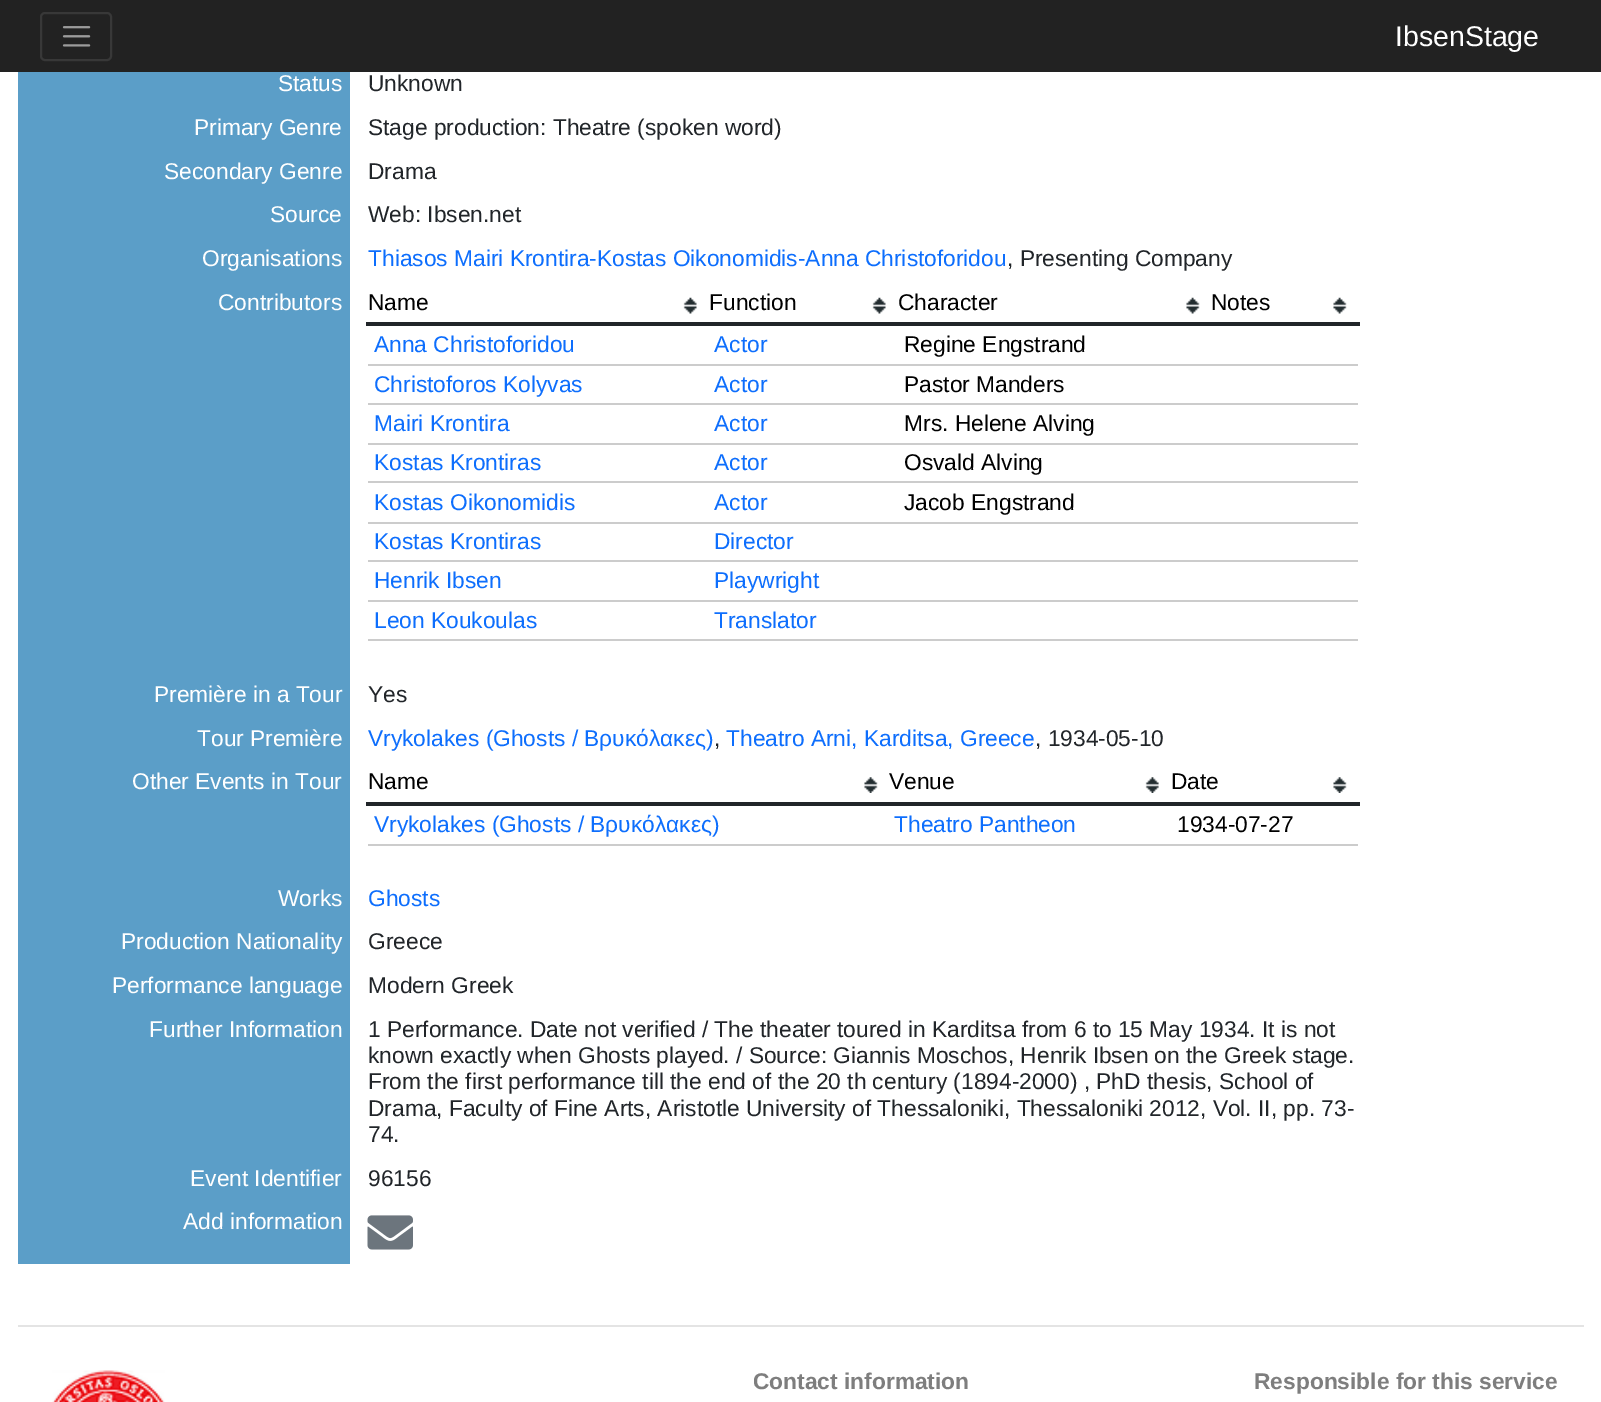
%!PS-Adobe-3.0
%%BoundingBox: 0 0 1601 1402
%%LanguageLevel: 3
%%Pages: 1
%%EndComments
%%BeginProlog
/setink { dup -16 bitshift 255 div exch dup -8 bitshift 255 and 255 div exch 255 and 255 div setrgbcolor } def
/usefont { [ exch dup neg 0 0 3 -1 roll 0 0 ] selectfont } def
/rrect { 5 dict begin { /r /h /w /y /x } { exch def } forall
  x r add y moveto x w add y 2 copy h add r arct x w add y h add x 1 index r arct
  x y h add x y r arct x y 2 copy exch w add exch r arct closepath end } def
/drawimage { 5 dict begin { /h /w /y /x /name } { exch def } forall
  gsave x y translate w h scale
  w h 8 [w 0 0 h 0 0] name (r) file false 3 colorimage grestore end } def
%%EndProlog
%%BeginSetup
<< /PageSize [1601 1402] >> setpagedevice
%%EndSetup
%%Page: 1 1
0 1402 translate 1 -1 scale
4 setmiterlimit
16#FFFFFF setink
0 0 1601 1402 rectfill
16#222222 setink
0 0 1601 72 rectfill
16#383838 setink
2 setlinewidth
41 13 70 47 4 rrect stroke
(img1.raw) 62 26 29 21 drawimage
/LiberationSans-Regular 28.5 usefont
16#FFFFFF setink
1395 46 moveto (IbsenStage) show
16#5B9EC8 setink
18 72 332 1192 rectfill
/LiberationSans-Regular 22.75 usefont
16#FFFFFF setink
278 91 moveto (Status) show
16#212529 setink
368 91 moveto (Unknown) show
16#FFFFFF setink
194 135 moveto (Primary Genre) show
16#212529 setink
368 135 moveto (Stage production: Theatre \(spoken word\)) show
16#FFFFFF setink
164 179 moveto (Secondary Genre) show
16#212529 setink
368 179 moveto (Drama) show
16#FFFFFF setink
270 222 moveto (Source) show
16#212529 setink
368 222 moveto (Web: Ibsen.net) show
16#FFFFFF setink
202 266 moveto (Organisations) show
16#0D6EFD setink
368 266 moveto (Thiasos Mairi Krontira-Kostas Oikonomidis-Anna Christoforidou) show
16#212529 setink
1007 266 moveto (, Presenting Company) show
16#FFFFFF setink
218 310 moveto (Contributors) show
(img2.raw) 683 297 14 17 drawimage
16#000000 setink
368 310 moveto (Name) show
(img2.raw) 872 297 14 17 drawimage
709 310 moveto (Function) show
(img3.raw) 1186 297 14 17 drawimage
898 310 moveto (Character) show
(img3.raw) 1333 297 14 17 drawimage
1211 310 moveto (Notes) show
16#212529 setink
366 322 994 4 rectfill
16#0D6EFD setink
374 352 moveto (Anna Christoforidou) show
714 352 moveto (Actor) show
16#000000 setink
904 352 moveto (Regine Engstrand) show
16#CCCCCC setink
368 364 990 2 rectfill
16#0D6EFD setink
374 392 moveto (Christoforos Kolyvas) show
714 392 moveto (Actor) show
16#000000 setink
904 392 moveto (Pastor Manders) show
16#CCCCCC setink
368 403 990 2 rectfill
16#0D6EFD setink
374 431 moveto (Mairi Krontira) show
714 431 moveto (Actor) show
16#000000 setink
904 431 moveto (Mrs. Helene Alving) show
16#CCCCCC setink
368 443 990 2 rectfill
16#0D6EFD setink
374 470 moveto (Kostas Krontiras) show
714 470 moveto (Actor) show
16#000000 setink
904 470 moveto (Osvald Alving) show
16#CCCCCC setink
368 481 990 2 rectfill
16#0D6EFD setink
374 510 moveto (Kostas Oikonomidis) show
714 510 moveto (Actor) show
16#000000 setink
904 510 moveto (Jacob Engstrand) show
16#CCCCCC setink
368 522 990 2 rectfill
16#0D6EFD setink
374 549 moveto (Kostas Krontiras) show
714 549 moveto (Director) show
16#CCCCCC setink
368 560 990 2 rectfill
16#0D6EFD setink
374 588 moveto (Henrik Ibsen) show
714 588 moveto (Playwright) show
16#CCCCCC setink
368 600 990 2 rectfill
16#0D6EFD setink
374 628 moveto (Leon Koukoulas) show
714 628 moveto (Translator) show
16#CCCCCC setink
368 639 990 2 rectfill
16#FFFFFF setink
154 702 moveto (Première in a Tour) show
16#212529 setink
368 702 moveto (Yes) show
16#FFFFFF setink
197 746 moveto (Tour Première) show
16#0D6EFD setink
368 746 moveto (Vrykolakes \(Ghosts / Βρυκόλακες\)) show
16#212529 setink
714 746 moveto (,) show
16#0D6EFD setink
726 746 moveto (Theatro Arni, Karditsa, Greece) show
16#212529 setink
1035 746 moveto (, 1934-05-10) show
16#FFFFFF setink
132 789 moveto (Other Events in Tour) show
(img4.raw) 864 777 14 16 drawimage
16#000000 setink
368 789 moveto (Name) show
(img5.raw) 1145 777 14 16 drawimage
889 789 moveto (Venue) show
(img4.raw) 1333 777 14 16 drawimage
1171 789 moveto (Date) show
16#212529 setink
366 802 994 4 rectfill
16#0D6EFD setink
374 832 moveto (Vrykolakes \(Ghosts / Βρυκόλακες\)) show
894 832 moveto (Theatro Pantheon) show
16#CCCCCC setink
368 844 990 2 rectfill
16#000000 setink
1177 832 moveto (1934-07-27) show
16#FFFFFF setink
278 906 moveto (Works) show
16#0D6EFD setink
368 906 moveto (Ghosts) show
16#FFFFFF setink
121 949 moveto (Production Nationality) show
16#212529 setink
368 949 moveto (Greece) show
16#FFFFFF setink
112 993 moveto (Performance language) show
16#212529 setink
368 993 moveto (Modern Greek) show
16#FFFFFF setink
149 1037 moveto (Further Information) show
16#212529 setink
[
    [(1 Performance. Date not verified / The theater toured in Karditsa from 6 to 15 May 1934. It is not) 368 1037]
    [(known exactly when Ghosts played. / Source: Giannis Moschos, Henrik Ibsen on the Greek stage.) 368 1063]
    [(From the first performance till the end of the 20 th century \(1894-2000\) , PhD thesis, School of) 368 1089]
    [(Drama, Faculty of Fine Arts, Aristotle University of Thessaloniki, Thessaloniki 2012, Vol. II, pp. 73-) 368 1116]
    [(74.) 368 1142]
] { aload pop moveto show } forall
16#FFFFFF setink
190 1186 moveto (Event Identifier) show
16#212529 setink
368 1186 moveto (96156) show
16#FFFFFF setink
183 1229 moveto (Add information) show
(img6.raw) 367 1215 46 35 drawimage
16#E4E4E4 setink
18 1325 1566 2 rectfill
(img7.raw) 52 1370 113 32 drawimage
/LiberationSans-Bold 22.75 usefont
16#7E7E7E setink
753 1389 moveto (Contact information) show
1254 1389 moveto (Responsible for this service) show
showpage
%%EOF
